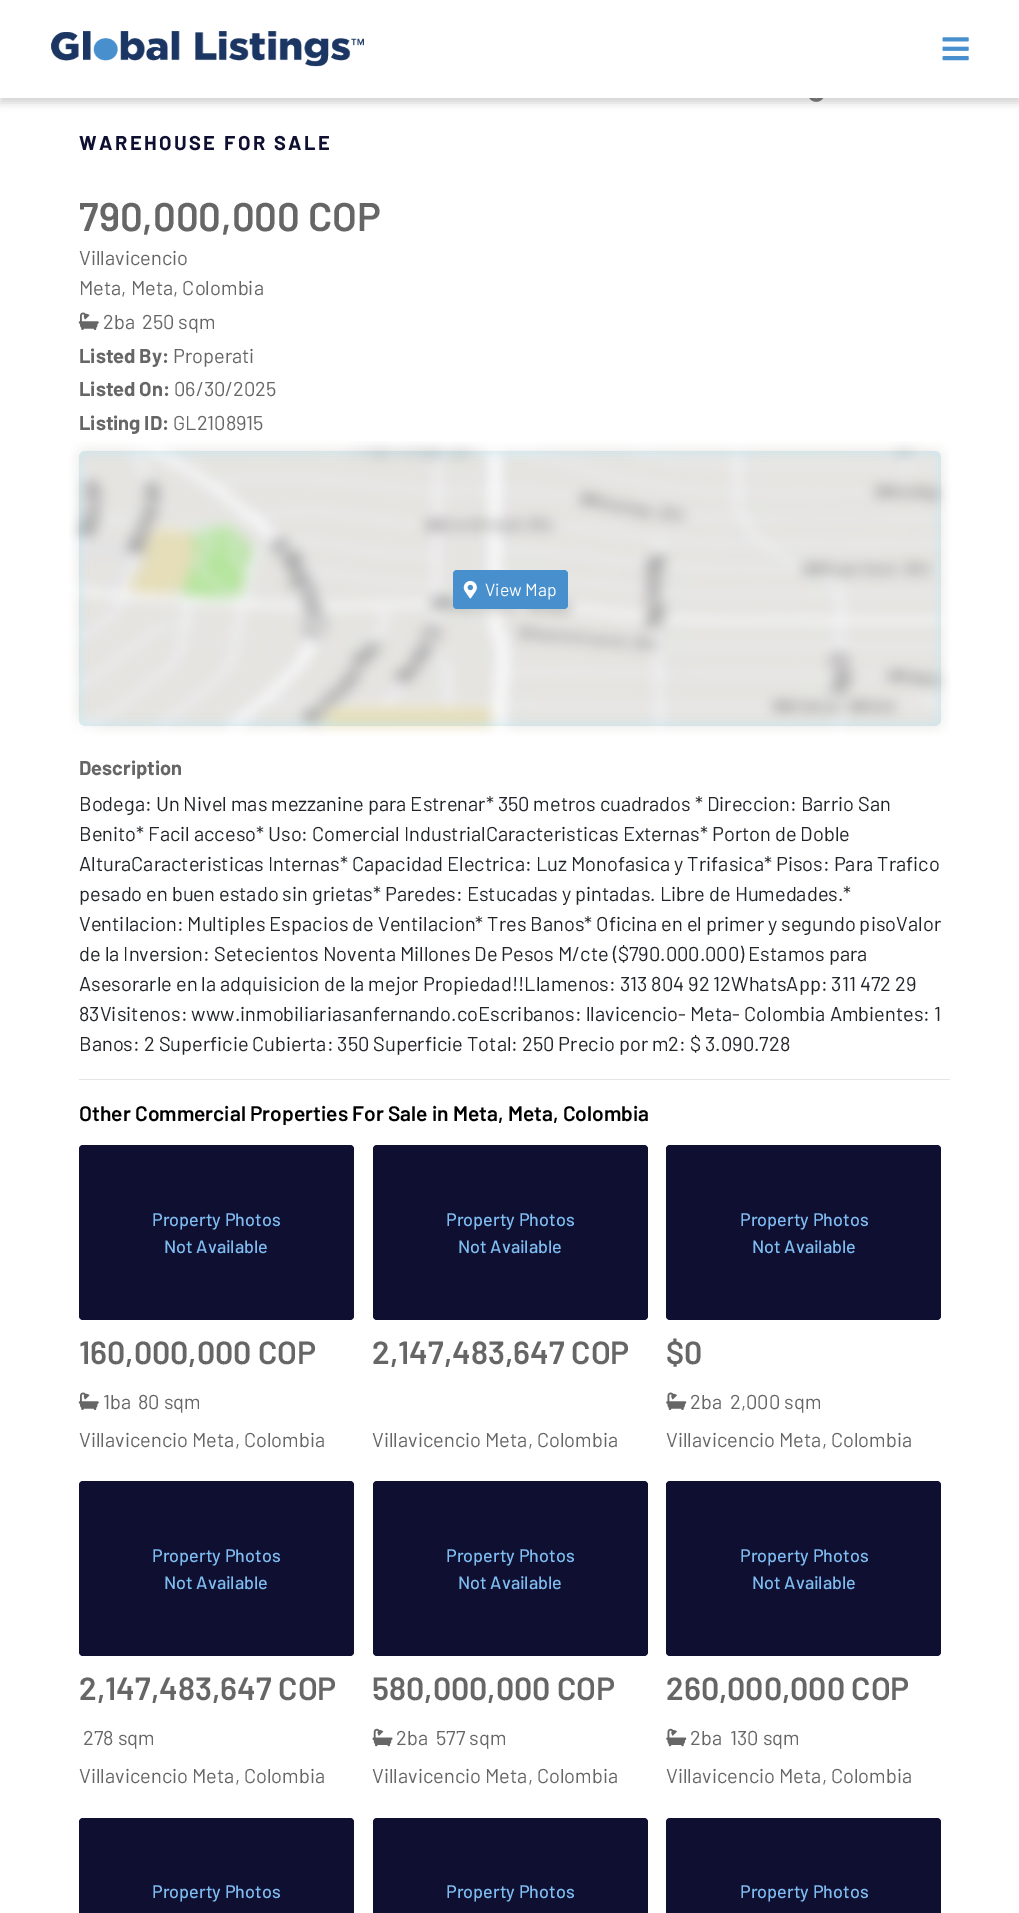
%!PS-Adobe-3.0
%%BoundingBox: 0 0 1019 1913
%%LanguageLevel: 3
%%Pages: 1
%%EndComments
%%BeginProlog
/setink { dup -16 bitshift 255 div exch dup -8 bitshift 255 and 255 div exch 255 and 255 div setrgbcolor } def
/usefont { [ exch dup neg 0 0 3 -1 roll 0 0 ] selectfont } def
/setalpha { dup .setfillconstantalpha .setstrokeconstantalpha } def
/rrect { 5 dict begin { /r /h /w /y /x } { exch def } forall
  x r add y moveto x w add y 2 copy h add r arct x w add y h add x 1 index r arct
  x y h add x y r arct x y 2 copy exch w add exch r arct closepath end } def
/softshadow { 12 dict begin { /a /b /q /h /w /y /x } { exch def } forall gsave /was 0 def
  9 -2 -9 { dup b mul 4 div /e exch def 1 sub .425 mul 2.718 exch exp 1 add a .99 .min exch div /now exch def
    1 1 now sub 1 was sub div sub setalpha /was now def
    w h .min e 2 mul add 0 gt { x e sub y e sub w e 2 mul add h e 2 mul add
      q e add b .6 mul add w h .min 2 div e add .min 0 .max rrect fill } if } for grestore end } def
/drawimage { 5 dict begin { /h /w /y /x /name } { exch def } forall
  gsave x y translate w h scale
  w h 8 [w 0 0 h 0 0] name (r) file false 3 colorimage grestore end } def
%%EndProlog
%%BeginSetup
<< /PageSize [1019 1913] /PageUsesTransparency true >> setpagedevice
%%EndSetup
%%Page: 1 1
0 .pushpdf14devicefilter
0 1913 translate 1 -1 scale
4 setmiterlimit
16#FFFFFF setink
0 0 1019 1913 rectfill
(img3.raw) 809 98 15 4 drawimage
16#000000 setink
0 5 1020 98 0 4 0.17 softshadow
16#FFFFFF setink
0 0 1019 98 rectfill
(img1.raw) 51 31 313 36 drawimage
(img2.raw) 942 37 27 24 drawimage
/Barlow-Bold 20 usefont
16#0F1031 setink
79 150 moveto 2.5 0 (WAREHOUSE FOR SALE) ashow
/Barlow-SemiBold 40 usefont
16#666666 setink
79 231 moveto (790,000,000 COP) show
/Barlow-Regular 20 usefont
79 265 moveto (Villavicencio) show
79 295 moveto (Meta, Meta, Colombia) show
(img4.raw) 78 312 21 18 drawimage
103 329 moveto (2ba) show
142 329 moveto (250 sqm) show
/Barlow-Bold 20 usefont
79 363 moveto (Listed By:) show
/Barlow-Regular 20 usefont
173 363 moveto (Properati) show
/Barlow-Bold 20 usefont
79 396 moveto (Listed On:) show
/Barlow-Regular 20 usefont
174 396 moveto (06/30/2025) show
/Barlow-Bold 20 usefont
79 430 moveto (Listing ID:) show
/Barlow-Regular 20 usefont
173 430 moveto (GL2108915) show
16#C7E6F0 setink
79 451 862 275 6 rrect fill
(img5.raw) 69 441 882 295 drawimage
16#488FCD setink
453 570 115 39 4 rrect fill
(img6.raw) 463 580 14 19 drawimage
/Barlow-Regular 17.5 usefont
16#FFFFFF setink
485 596 moveto (View Map) show
/Barlow-Bold 20 usefont
16#666666 setink
79 775 moveto (Description) show
/Barlow-Regular 20 usefont
16#212529 setink
[
    [(Bodega: Un Nivel mas mezzanine para Estrenar* 350 metros cuadrados * Direccion: Barrio San) 79 811]
    [(Benito* Facil acceso* Uso: Comercial IndustrialCaracteristicas Externas* Porton de Doble) 79 841]
    [(AlturaCaracteristicas Internas* Capacidad Electrica: Luz Monofasica y Trifasica* Pisos: Para Trafico) 79 871]
    [(pesado en buen estado sin grietas* Paredes: Estucadas y pintadas. Libre de Humedades.*) 79 901]
    [(Ventilacion: Multiples Espacios de Ventilacion* Tres Banos* Oficina en el primer y segundo pisoValor) 79 931]
    [(de la Inversion: Setecientos Noventa Millones De Pesos M/cte \($790.000.000\) Estamos para) 79 961]
    [(Asesorarle en la adquisicion de la mejor Propiedad!!Llamenos: 313 804 92 12WhatsApp: 311 472 29) 79 991]
    [(83Visitenos: www.inmobiliariasanfernando.coEscribanos: llavicencio- Meta- Colombia Ambientes: 1) 79 1021]
    [(Banos: 2 Superficie Cubierta: 350 Superficie Total: 250 Precio por m2: $ 3.090.728) 79 1051]
] { aload pop moveto show } forall
16#E6E6E6 setink
79 1079 871 1 rectfill
/Barlow-SemiBold 21 usefont
16#000000 setink
79 1121 moveto (Other Commercial Properties For Sale in Meta, Meta, Colombia) show
16#0F1031 setink
79 1145 275 175 4 rrect fill
/Barlow-Medium 18 usefont
16#7EBCF1 setink
152 1226 moveto (Property Photos) show
164 1253 moveto (Not Available) show
/Barlow-SemiBold 32 usefont
16#666666 setink
79 1364 moveto (160,000,000 COP) show
(img4.raw) 78 1392 21 18 drawimage
/Barlow-Regular 20 usefont
[
    [(1ba) 103 1409]
    [(80 sqm) 138 1409]
    [(Villavicencio Meta, Colombia) 79 1447]
] { aload pop moveto show } forall
16#0F1031 setink
373 1145 275 175 4 rrect fill
/Barlow-Medium 18 usefont
16#7EBCF1 setink
446 1226 moveto (Property Photos) show
458 1253 moveto (Not Available) show
/Barlow-SemiBold 32 usefont
16#666666 setink
372 1364 moveto (2,147,483,647 COP) show
/Barlow-Regular 20 usefont
372 1447 moveto (Villavicencio Meta, Colombia) show
16#0F1031 setink
666 1145 275 175 4 rrect fill
/Barlow-Medium 18 usefont
16#7EBCF1 setink
740 1226 moveto (Property Photos) show
752 1253 moveto (Not Available) show
/Barlow-SemiBold 32 usefont
16#666666 setink
666 1364 moveto ($0) show
(img7.raw) 666 1392 21 18 drawimage
/Barlow-Regular 20 usefont
[
    [(2ba) 690 1409]
    [(2,000 sqm) 730 1409]
    [(Villavicencio Meta, Colombia) 666 1447]
] { aload pop moveto show } forall
16#0F1031 setink
79 1481 275 175 4 rrect fill
/Barlow-Medium 18 usefont
16#7EBCF1 setink
152 1562 moveto (Property Photos) show
164 1589 moveto (Not Available) show
/Barlow-SemiBold 32 usefont
16#666666 setink
79 1700 moveto (2,147,483,647 COP) show
/Barlow-Regular 20 usefont
83 1745 moveto (278 sqm) show
79 1783 moveto (Villavicencio Meta, Colombia) show
16#0F1031 setink
373 1481 275 175 4 rrect fill
/Barlow-Medium 18 usefont
16#7EBCF1 setink
446 1562 moveto (Property Photos) show
458 1589 moveto (Not Available) show
/Barlow-SemiBold 32 usefont
16#666666 setink
372 1700 moveto (580,000,000 COP) show
(img8.raw) 372 1728 21 19 drawimage
/Barlow-Regular 20 usefont
[
    [(2ba) 396 1745]
    [(577 sqm) 436 1745]
    [(Villavicencio Meta, Colombia) 372 1783]
] { aload pop moveto show } forall
16#0F1031 setink
666 1481 275 175 4 rrect fill
/Barlow-Medium 18 usefont
16#7EBCF1 setink
740 1562 moveto (Property Photos) show
752 1589 moveto (Not Available) show
/Barlow-SemiBold 32 usefont
16#666666 setink
666 1700 moveto (260,000,000 COP) show
(img9.raw) 666 1728 21 19 drawimage
/Barlow-Regular 20 usefont
[
    [(2ba) 690 1745]
    [(130 sqm) 730 1745]
    [(Villavicencio Meta, Colombia) 666 1783]
] { aload pop moveto show } forall
16#0F1031 setink
79 1818 275 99 4 rrect fill
/Barlow-Medium 18 usefont
16#7EBCF1 setink
152 1898 moveto (Property Photos) show
16#0F1031 setink
373 1818 275 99 4 rrect fill
16#7EBCF1 setink
446 1898 moveto (Property Photos) show
16#0F1031 setink
666 1818 275 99 4 rrect fill
16#7EBCF1 setink
740 1898 moveto (Property Photos) show
.poppdf14devicefilter showpage
%%EOF
